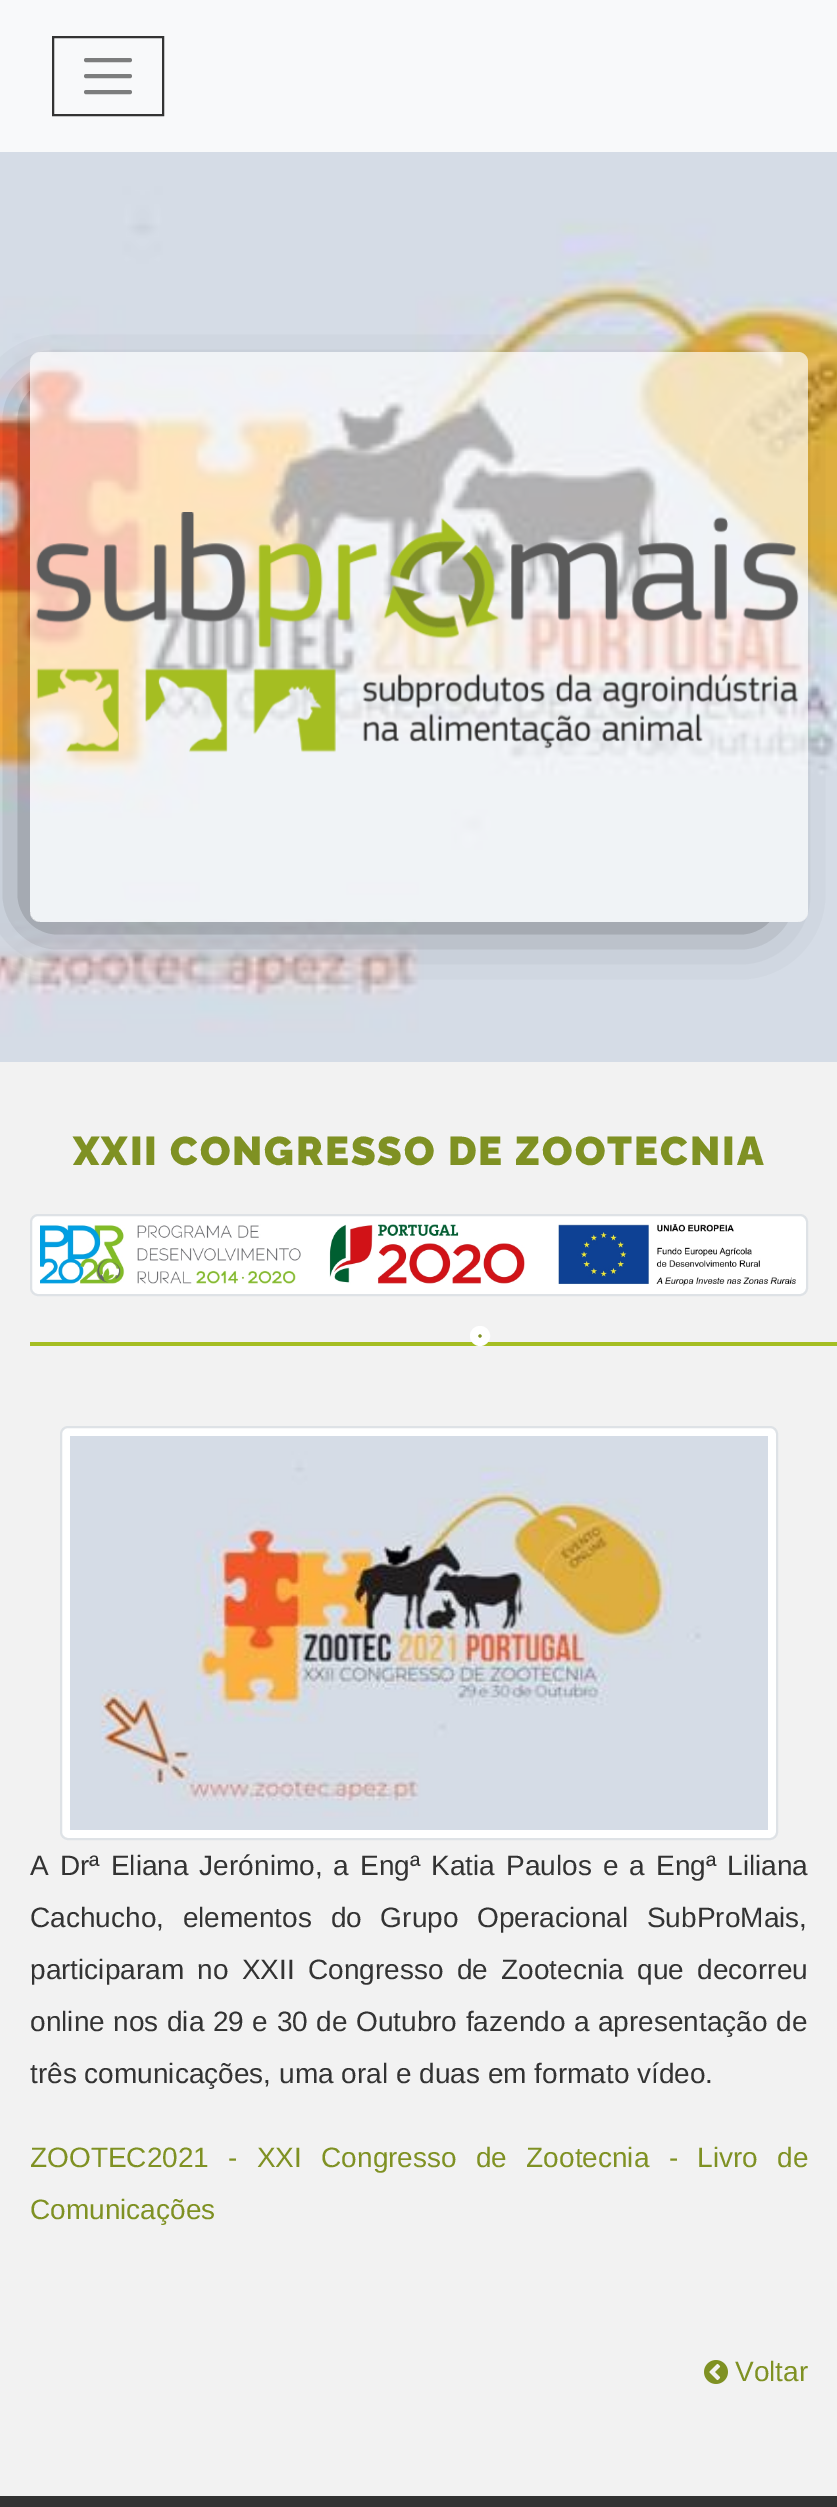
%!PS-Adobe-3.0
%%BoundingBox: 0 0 837 2507
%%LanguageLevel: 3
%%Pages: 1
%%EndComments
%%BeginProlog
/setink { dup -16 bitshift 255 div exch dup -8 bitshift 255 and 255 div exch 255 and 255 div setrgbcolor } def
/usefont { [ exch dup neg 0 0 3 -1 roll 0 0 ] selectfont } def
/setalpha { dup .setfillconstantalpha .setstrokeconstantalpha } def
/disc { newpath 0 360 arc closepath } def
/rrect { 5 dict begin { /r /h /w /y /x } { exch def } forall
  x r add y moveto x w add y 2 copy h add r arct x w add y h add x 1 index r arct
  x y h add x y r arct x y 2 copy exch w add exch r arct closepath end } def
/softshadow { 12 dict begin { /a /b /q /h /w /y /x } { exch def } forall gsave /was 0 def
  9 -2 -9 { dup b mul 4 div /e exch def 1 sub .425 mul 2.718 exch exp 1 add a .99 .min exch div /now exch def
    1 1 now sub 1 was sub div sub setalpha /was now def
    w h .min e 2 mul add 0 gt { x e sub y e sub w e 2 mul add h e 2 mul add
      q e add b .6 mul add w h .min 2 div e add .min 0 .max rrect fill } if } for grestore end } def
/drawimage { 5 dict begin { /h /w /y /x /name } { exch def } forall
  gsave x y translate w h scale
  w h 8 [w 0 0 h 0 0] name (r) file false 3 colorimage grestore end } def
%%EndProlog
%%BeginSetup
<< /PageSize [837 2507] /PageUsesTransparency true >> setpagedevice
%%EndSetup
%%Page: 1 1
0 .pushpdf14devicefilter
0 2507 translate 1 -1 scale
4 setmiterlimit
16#FFFFFF setink
0 0 837 2507 rectfill
16#F8F9FA setink
0 0 837 152 rectfill
16#333333 setink
2 setlinewidth
53 37 110 78 rectstroke
16#7C7D7D setink
4 setlinewidth
1 setlinecap
86 60 moveto 130 60 lineto 86 76 moveto 130 76 lineto 86 92 moveto 130 92 lineto stroke
(img1.raw) 0 152 837 910 drawimage
gsave
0 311 moveto 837 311 lineto 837 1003 lineto 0 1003 lineto closepath 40 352 moveto 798 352 lineto 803.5 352 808 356.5 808 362 curveto 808 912 lineto 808 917.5 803.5 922 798 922 curveto 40 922 lineto 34.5 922 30 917.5 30 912 curveto 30 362 lineto 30 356.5 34.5 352 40 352 curveto closepath eoclip newpath
16#000000 setink
40 402 718 510 0 30 0.75 softshadow
grestore
0.65 setalpha
16#FFFFFF setink
30 352 778 570 10 rrect fill
1 setalpha
(img2.raw) 35 512 764 241 drawimage
16#F2F2F2 setink
0 1062 837 1434 rectfill
/Raleway-Black 40 usefont
16#7F9123 setink
73 1165 moveto 2 0 (XXII CONGRESSO DE ZOOTECNIA) ashow
16#FFFFFF setink
31 1215 776 80 7 rrect gsave fill grestore
16#DEE2E6 setink
2 setlinewidth
0 setlinecap
stroke
(img3.raw) 40 1224 756 62 drawimage
16#A5BE22 setink
30 1342 807 4 rectfill
16#7F9123 setink
480 1336 6 disc gsave fill grestore
16#FFFFFF setink
8 setlinewidth
stroke
61 1427 716 412 7 rrect gsave fill grestore
16#DEE2E6 setink
2 setlinewidth
stroke
(img4.raw) 70 1436 698 394 drawimage
/LiberationSans-Regular 28 usefont
16#333333 setink
30 1875 moveto 3.25 0 32 (A Drª Eliana Jerónimo, a Engª Katia Paulos e a Engª Liliana) widthshow
30 1927 moveto 11 0 32 (Cachucho, elementos do Grupo Operacional SubProMais,) widthshow
30 1979 moveto 5.5 0 32 (participaram no XXII Congresso de Zootecnia que decorreu) widthshow
30 2031 moveto 0.75 0 32 (online nos dia 29 e 30 de Outubro fazendo a apresentação de) widthshow
30 2083 moveto (três comunicações, uma oral e duas em formato vídeo.) show
16#7F9123 setink
30 2167 moveto 11.5 0 32 (ZOOTEC2021 - XXI Congresso de Zootecnia - Livro de) widthshow
30 2219 moveto (Comunicações) show
(img5.raw) 704 2360 24 24 drawimage
735 2381 moveto (Voltar) show
16#333333 setink
0 2496 837 11 rectfill
.poppdf14devicefilter showpage
%%EOF
